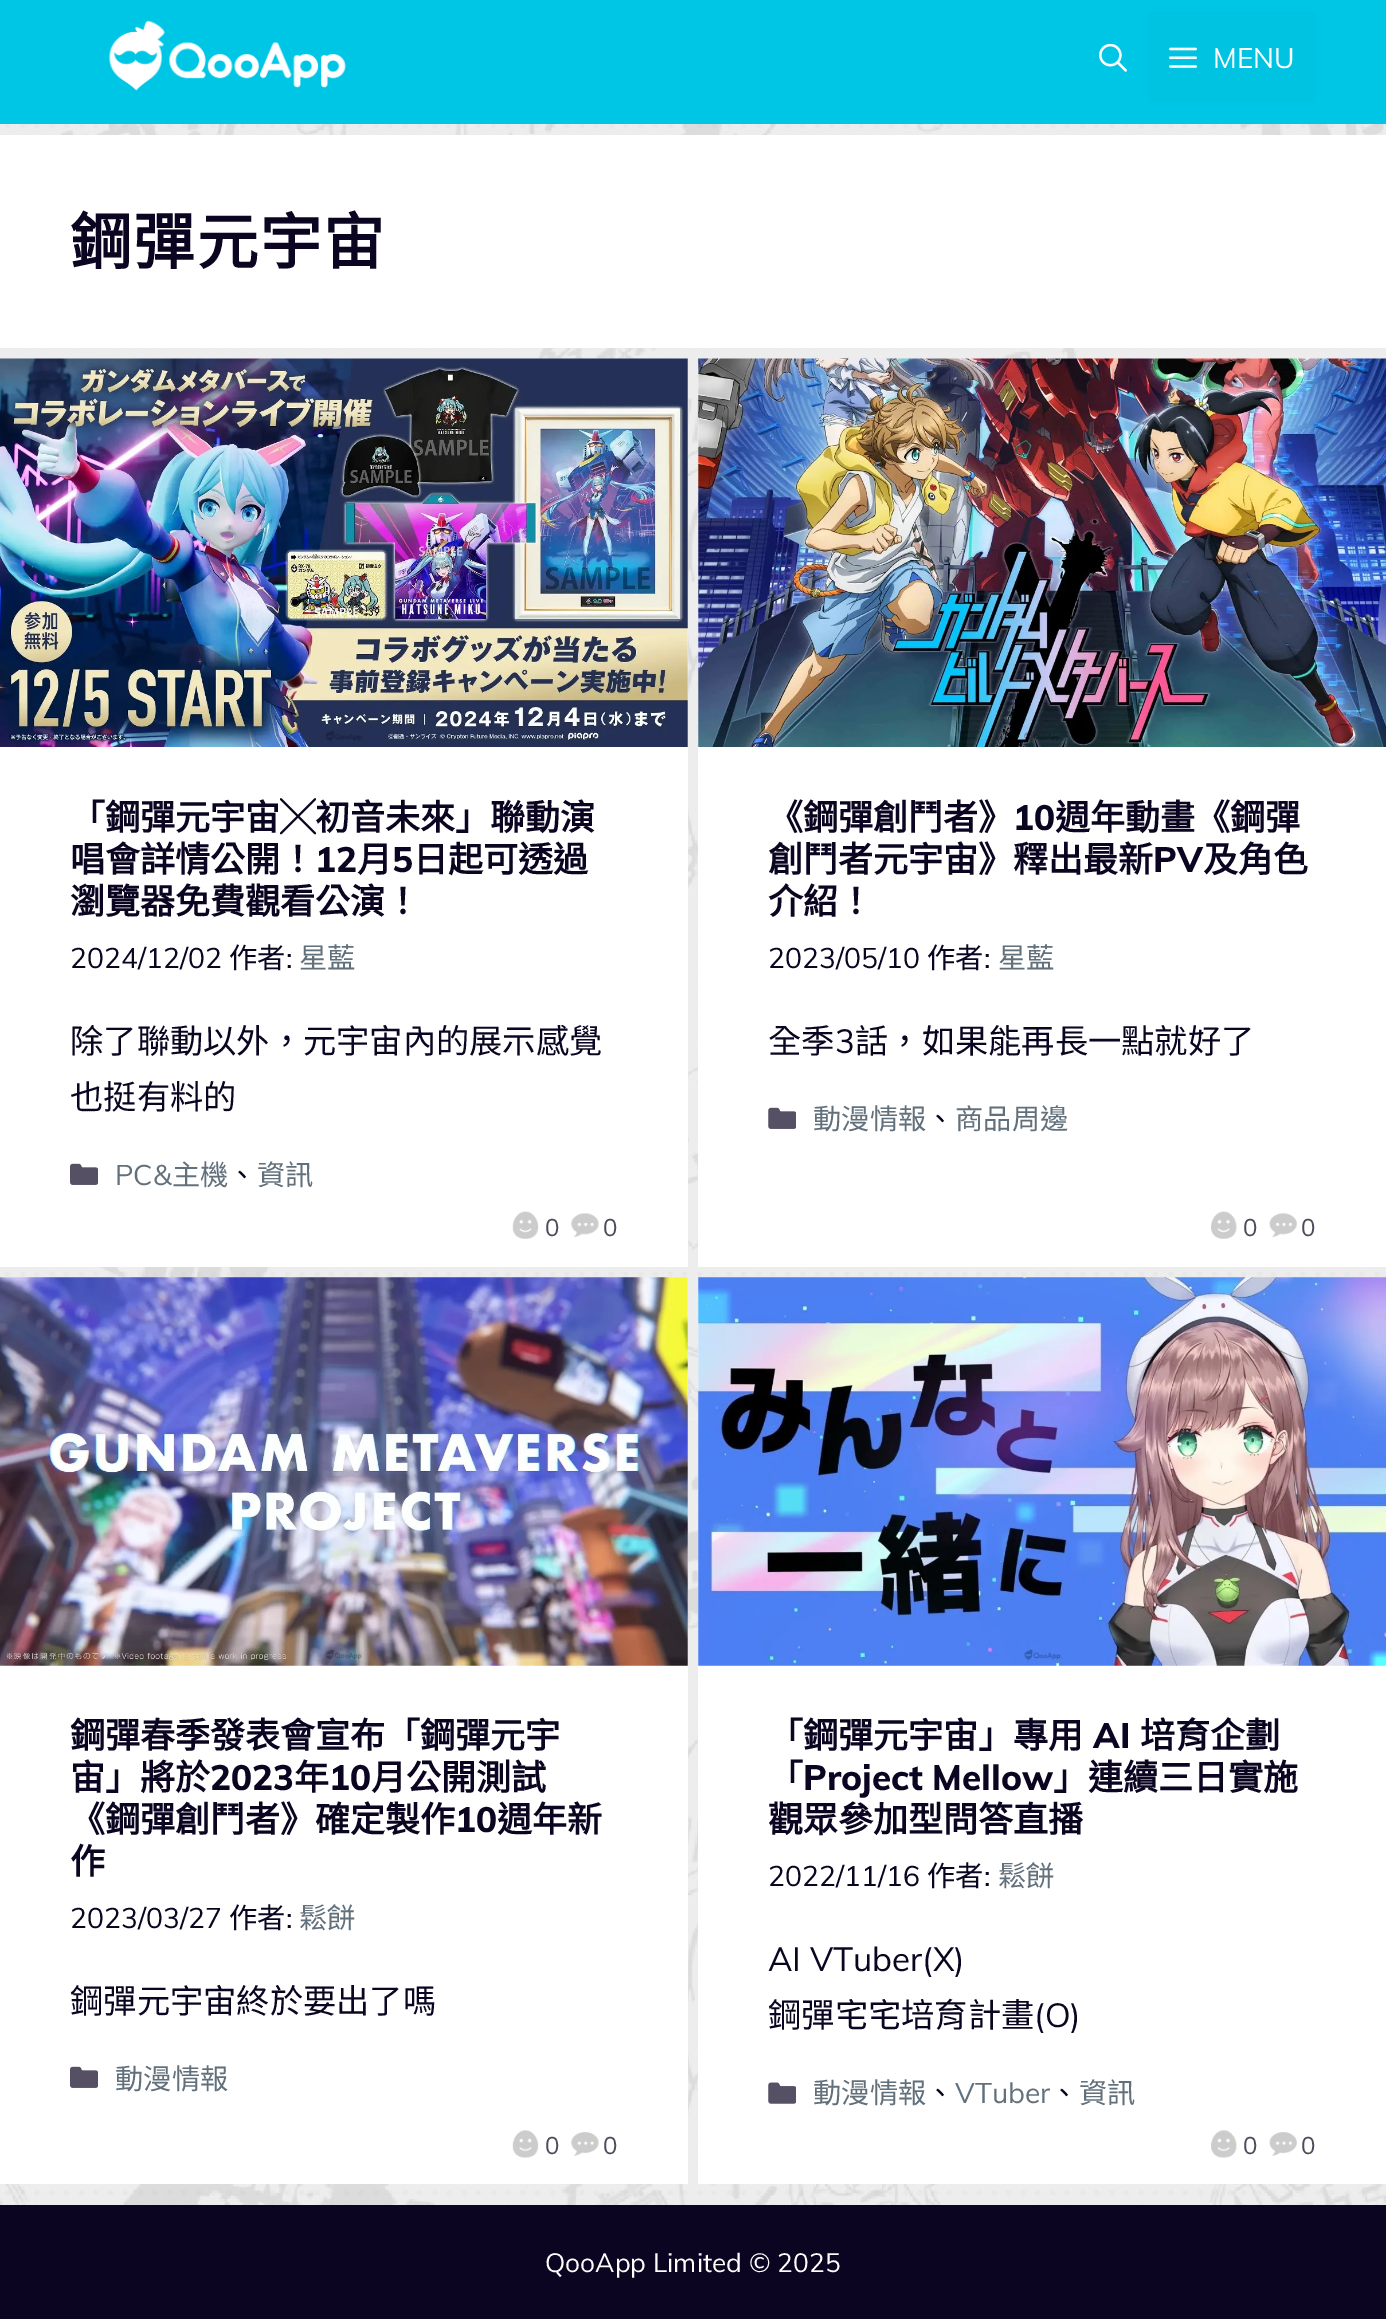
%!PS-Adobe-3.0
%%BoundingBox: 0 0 1386 2319
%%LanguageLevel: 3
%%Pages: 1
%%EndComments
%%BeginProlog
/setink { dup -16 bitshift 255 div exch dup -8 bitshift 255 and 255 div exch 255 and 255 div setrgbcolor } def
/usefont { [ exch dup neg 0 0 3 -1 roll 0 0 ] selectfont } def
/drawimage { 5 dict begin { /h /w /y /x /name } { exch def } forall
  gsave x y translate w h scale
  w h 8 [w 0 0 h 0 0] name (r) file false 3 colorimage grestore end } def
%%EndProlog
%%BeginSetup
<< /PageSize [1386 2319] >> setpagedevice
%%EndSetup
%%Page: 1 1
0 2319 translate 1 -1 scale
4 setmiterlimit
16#FFFFFF setink
0 0 1386 2319 rectfill
(img1.raw) 0 124 1386 2081 drawimage
16#00C6E6 setink
0 0 1386 124 rectfill
(img2.raw) 109 20 237 71 drawimage
(img3.raw) 1099 44 28 28 drawimage
16#00C2E1 setink
1148 12 168 91 rectfill
(img4.raw) 1169 47 28 21 drawimage
/Muli-Regular 28 usefont
16#FFFFFF setink
1213 68 moveto (MENU) show
0 135 1386 213 rectfill
/NotoSansCJKTC-Bold 61.25 usefont
16#0B0521 setink
70 264 moveto 2 0 (鋼彈元宇宙) ashow
16#FFFFFF setink
0 359 688 908 rectfill
(img5.raw) 0 358 688 389 drawimage
/NotoSansCJKTC-Bold 35 usefont
16#0B0521 setink
70 830 moveto (「鋼彈元宇宙╳初音未來」聯動演) show
70 872 moveto (唱會詳情公開！) show
/Muli-ExtraBold 35 usefont
315 872 moveto (12) show
/NotoSansCJKTC-Bold 35 usefont
357 872 moveto (月) show
/Muli-ExtraBold 35 usefont
392 872 moveto (5) show
/NotoSansCJKTC-Bold 35 usefont
413 872 moveto (日起可透過) show
70 914 moveto (瀏覽器免費觀看公演！) show
/Muli-Regular 28.25 usefont
70 968 moveto (2024/12/02) show
/NotoSansCJKTC-Regular 28.25 usefont
229 968 moveto (作者) show
/Muli-Regular 28.25 usefont
286 968 moveto (:) show
/NotoSansCJKTC-Regular 28.25 usefont
16#62707C setink
299 968 moveto (星藍) show
(img6.raw) 512 1211 27 28 drawimage
/Muli-Regular 24 usefont
16#4C4C5C setink
545 1236 moveto (0) show
(img7.raw) 571 1213 28 24 drawimage
603 1236 moveto (0) show
/NotoSansCJKTC-Regular 33.25 usefont
16#0B0521 setink
70 1053 moveto (除了聯動以外，元宇宙內的展示感覺) show
70 1109 moveto (也挺有料的) show
(img8.raw) 70 1163 28 22 drawimage
/Muli-Regular 28.25 usefont
16#62707C setink
115 1185 moveto (PC&) show
/NotoSansCJKTC-Regular 28.25 usefont
172 1185 moveto (主機) show
16#0B0521 setink
228 1185 moveto (、) show
16#62707C setink
257 1185 moveto (資訊) show
16#FFFFFF setink
698 359 688 908 rectfill
(img9.raw) 698 358 688 389 drawimage
/NotoSansCJKTC-Bold 35 usefont
16#0B0521 setink
768 830 moveto (《鋼彈創鬥者》) show
/Muli-ExtraBold 35 usefont
1013 830 moveto (10) show
/NotoSansCJKTC-Bold 35 usefont
1055 830 moveto (週年動畫《鋼彈) show
768 872 moveto (創鬥者元宇宙》釋出最新) show
/Muli-ExtraBold 35 usefont
1153 872 moveto (PV) show
/NotoSansCJKTC-Bold 35 usefont
1203 872 moveto (及角色) show
768 914 moveto (介紹！) show
/Muli-Regular 28.25 usefont
768 968 moveto (2023/05/10) show
/NotoSansCJKTC-Regular 28.25 usefont
927 968 moveto (作者) show
/Muli-Regular 28.25 usefont
984 968 moveto (:) show
/NotoSansCJKTC-Regular 28.25 usefont
16#62707C setink
998 968 moveto (星藍) show
(img10.raw) 1211 1211 26 28 drawimage
/Muli-Regular 24 usefont
16#4C4C5C setink
1243 1236 moveto (0) show
(img11.raw) 1269 1213 28 24 drawimage
1301 1236 moveto (0) show
/NotoSansCJKTC-Regular 33.25 usefont
16#0B0521 setink
768 1053 moveto (全季) show
/Muli-Regular 33.25 usefont
835 1053 moveto (3) show
/NotoSansCJKTC-Regular 33.25 usefont
855 1053 moveto (話，如果能再長一點就好了) show
(img12.raw) 768 1107 28 22 drawimage
/NotoSansCJKTC-Regular 28.25 usefont
16#62707C setink
813 1129 moveto (動漫情報) show
16#0B0521 setink
926 1129 moveto (、) show
16#62707C setink
955 1129 moveto (商品周邊) show
16#FFFFFF setink
0 1278 688 906 rectfill
(img13.raw) 0 1277 688 389 drawimage
/NotoSansCJKTC-Bold 35 usefont
16#0B0521 setink
70 1748 moveto (鋼彈春季發表會宣布「鋼彈元宇) show
70 1790 moveto (宙」將於) show
/Muli-ExtraBold 35 usefont
210 1790 moveto (2023) show
/NotoSansCJKTC-Bold 35 usefont
294 1790 moveto (年) show
/Muli-ExtraBold 35 usefont
329 1790 moveto (10) show
/NotoSansCJKTC-Bold 35 usefont
371 1790 moveto (月公開測試) show
70 1832 moveto (《鋼彈創鬥者》確定製作) show
/Muli-ExtraBold 35 usefont
455 1832 moveto (10) show
/NotoSansCJKTC-Bold 35 usefont
497 1832 moveto (週年新) show
70 1874 moveto (作) show
/Muli-Regular 28.25 usefont
70 1928 moveto (2023/03/27) show
/NotoSansCJKTC-Regular 28.25 usefont
229 1928 moveto (作者) show
/Muli-Regular 28.25 usefont
286 1928 moveto (:) show
/NotoSansCJKTC-Regular 28.25 usefont
16#62707C setink
299 1928 moveto (鬆餅) show
(img14.raw) 512 2130 27 28 drawimage
/Muli-Regular 24 usefont
16#4C4C5C setink
545 2154 moveto (0) show
(img15.raw) 571 2132 28 24 drawimage
603 2154 moveto (0) show
/NotoSansCJKTC-Regular 33.25 usefont
16#0B0521 setink
70 2013 moveto (鋼彈元宇宙終於要出了嗎) show
(img8.raw) 70 2066 28 22 drawimage
/NotoSansCJKTC-Regular 28.25 usefont
16#62707C setink
115 2089 moveto (動漫情報) show
16#FFFFFF setink
698 1278 688 906 rectfill
(img16.raw) 698 1277 688 389 drawimage
/NotoSansCJKTC-Bold 35 usefont
16#0B0521 setink
768 1748 moveto (「鋼彈元宇宙」專用) show
/Muli-ExtraBold 35 usefont
1093 1748 moveto (AI) show
/NotoSansCJKTC-Bold 35 usefont
1140 1748 moveto (培育企劃) show
768 1790 moveto (「) show
/Muli-ExtraBold 35 usefont
803 1790 moveto (Project Mellow) show
/NotoSansCJKTC-Bold 35 usefont
1053 1790 moveto (」連續三日實施) show
768 1832 moveto (觀眾參加型問答直播) show
/Muli-Regular 28.25 usefont
768 1886 moveto (2022/11/16) show
/NotoSansCJKTC-Regular 28.25 usefont
927 1886 moveto (作者) show
/Muli-Regular 28.25 usefont
984 1886 moveto (:) show
/NotoSansCJKTC-Regular 28.25 usefont
16#62707C setink
998 1886 moveto (鬆餅) show
(img17.raw) 1211 2130 26 28 drawimage
/Muli-Regular 24 usefont
16#4C4C5C setink
1243 2154 moveto (0) show
(img18.raw) 1269 2132 28 24 drawimage
1301 2154 moveto (0) show
/Muli-Regular 33.25 usefont
16#0B0521 setink
768 1971 moveto (AI VTuber\(X\)) show
/NotoSansCJKTC-Regular 33.25 usefont
768 2027 moveto (鋼彈宅宅培育計畫) show
/Muli-Regular 33.25 usefont
1034 2027 moveto (\(O\)) show
(img19.raw) 768 2082 28 22 drawimage
/NotoSansCJKTC-Regular 28.25 usefont
16#62707C setink
813 2103 moveto (動漫情報) show
16#0B0521 setink
926 2103 moveto (、) show
/Muli-Regular 28.25 usefont
16#62707C setink
955 2103 moveto (VTuber) show
/NotoSansCJKTC-Regular 28.25 usefont
16#0B0521 setink
1050 2103 moveto (、) show
16#62707C setink
1079 2103 moveto (資訊) show
16#0B0521 setink
0 2205 1386 114 rectfill
/Muli-Regular 26.25 usefont
16#FFFFFF setink
545 2272 moveto (QooApp Limited © 2025) show
showpage
%%EOF
